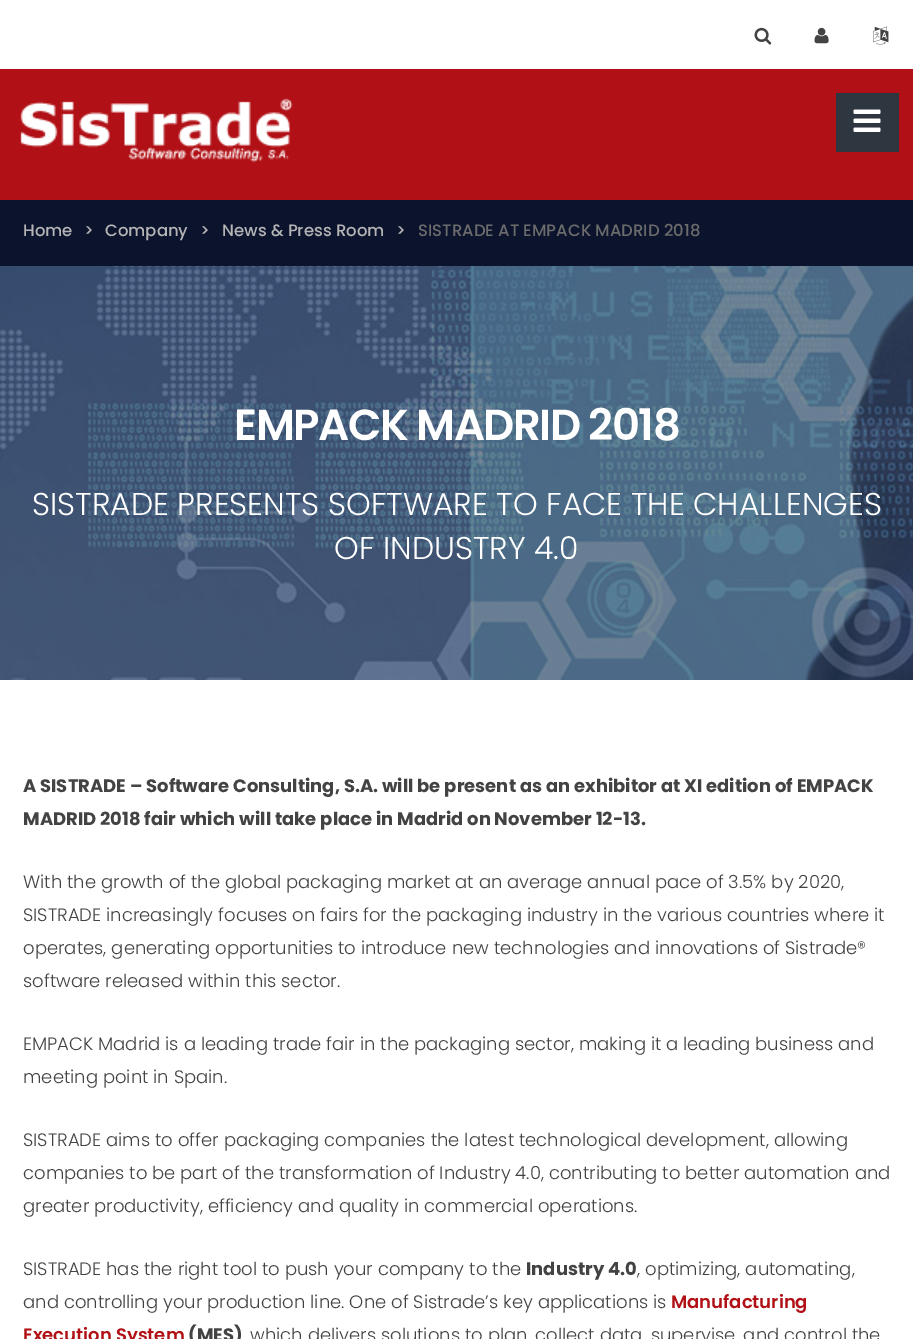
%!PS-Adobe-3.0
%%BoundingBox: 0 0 913 1339
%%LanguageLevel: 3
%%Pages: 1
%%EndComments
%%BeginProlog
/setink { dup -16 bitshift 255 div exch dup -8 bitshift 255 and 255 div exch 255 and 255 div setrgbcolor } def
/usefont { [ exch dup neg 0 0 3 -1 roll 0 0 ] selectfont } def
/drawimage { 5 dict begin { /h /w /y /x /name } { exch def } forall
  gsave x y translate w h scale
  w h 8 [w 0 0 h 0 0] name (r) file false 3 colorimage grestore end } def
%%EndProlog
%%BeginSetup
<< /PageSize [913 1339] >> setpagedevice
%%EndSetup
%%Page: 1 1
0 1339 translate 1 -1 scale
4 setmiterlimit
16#FFFFFF setink
0 0 913 1339 rectfill
(img1.raw) 754 27 18 18 drawimage
(img2.raw) 814 27 15 17 drawimage
(img3.raw) 873 26 16 19 drawimage
16#B11116 setink
0 69 913 131 rectfill
(img4.raw) 20 98 273 65 drawimage
16#2E363F setink
836 93 63 59 rectfill
(img5.raw) 853 109 28 23 drawimage
16#0C132D setink
0 200 913 66 rectfill
/Poppins-Medium 16.5 usefont
16#B5B5B5 setink
[
    [(Home) 23 236]
    [(>) 84 236]
    [(Company) 105 236]
    [(>) 200 236]
    [(News & Press Room) 222 236]
    [(>) 396 236]
] { aload pop moveto show } forall
16#6B6B6B setink
418 236 moveto (SISTRADE AT EMPACK MADRID 2018) show
(img6.raw) 0 266 913 414 drawimage
/Poppins-SemiBold 43.5 usefont
16#FFFFFF setink
234 440 moveto -1.5 0 (EMPACK MADRID 2018) ashow
/Poppins-Light 31.5 usefont
32 515 moveto (SISTRADE PRESENTS SOFTWARE TO FACE THE CHALLENGES) show
334 559 moveto (OF INDUSTRY 4.0) show
/Poppins-Bold 18 usefont
16#434343 setink
23 792 moveto (A SISTRADE – Software Consulting, S.A. will be present as an exhibitor at XI edition of EMPACK) show
23 825 moveto (MADRID 2018 fair which will take place in Madrid on November 12-13.) show
/Poppins-Light 18 usefont
[
    [(With the growth of the global packaging market at an average annual pace of 3.5% by 2020,) 23 888]
    [(SISTRADE increasingly focuses on fairs for the packaging industry in the various countries where it) 23 921]
    [(operates, generating opportunities to introduce new technologies and innovations of Sistrade®) 23 954]
    [(software released within this sector.) 23 987]
    [(EMPACK Madrid is a leading trade fair in the packaging sector, making it a leading business and) 23 1050]
    [(meeting point in Spain.) 23 1083]
    [(SISTRADE aims to offer packaging companies the latest technological development, allowing) 23 1146]
    [(companies to be part of the transformation of Industry 4.0, contributing to better automation and) 23 1179]
    [(greater productivity, efficiency and quality in commercial operations.) 23 1212]
    [(SISTRADE has the right tool to push your company to the) 23 1275]
] { aload pop moveto show } forall
/Poppins-Bold 18 usefont
526 1275 moveto (Industry 4.0) show
/Poppins-Light 18 usefont
637 1275 moveto (, optimizing, automating,) show
23 1308 moveto (and controlling your production line. One of Sistrade’s key applications is) show
/Poppins-SemiBold 18 usefont
16#B11116 setink
671 1308 moveto (Manufacturing) show
23 1341 moveto (Execution System) show
/Poppins-Bold 18 usefont
16#434343 setink
188 1341 moveto (\(MES\)) show
/Poppins-Light 18 usefont
250 1341 moveto (which delivers solutions to plan, collect data, supervise, and control the) show
showpage
%%EOF
